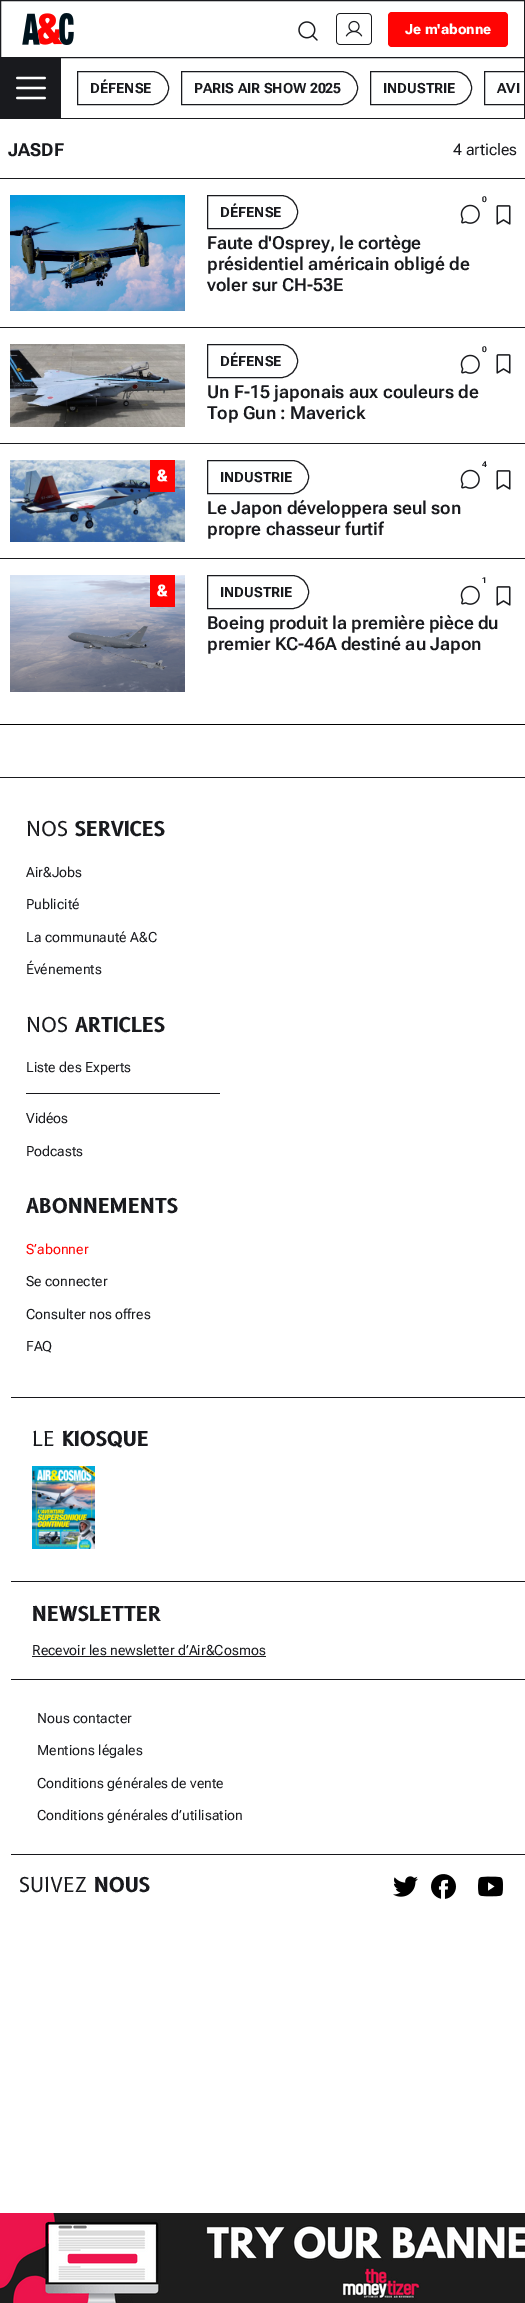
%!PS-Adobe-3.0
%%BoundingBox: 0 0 525 2303
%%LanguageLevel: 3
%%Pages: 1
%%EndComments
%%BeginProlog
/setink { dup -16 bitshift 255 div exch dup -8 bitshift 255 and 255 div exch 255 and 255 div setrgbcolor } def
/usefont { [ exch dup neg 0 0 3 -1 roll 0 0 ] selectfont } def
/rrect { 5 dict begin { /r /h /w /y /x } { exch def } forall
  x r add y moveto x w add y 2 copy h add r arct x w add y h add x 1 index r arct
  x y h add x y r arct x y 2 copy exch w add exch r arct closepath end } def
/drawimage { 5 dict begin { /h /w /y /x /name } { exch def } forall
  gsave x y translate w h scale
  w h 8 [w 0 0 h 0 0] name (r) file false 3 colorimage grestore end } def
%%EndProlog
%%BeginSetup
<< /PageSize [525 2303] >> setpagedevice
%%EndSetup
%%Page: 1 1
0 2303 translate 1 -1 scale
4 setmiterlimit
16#FFFFFF setink
0 0 525 2303 rectfill
16#191A1E setink
0.5 0.5 524 57 rectstroke
(img1.raw) 22 13 52 32 drawimage
(img2.raw) 298 21 20 20 drawimage
(img3.raw) 336 13 36 32 drawimage
16#FF0403 setink
388 12 120 35 4 rrect fill
/RobotoFlex-ExtraBold 14 usefont
16#FFFFFF setink
405 34 moveto (Je m'abonne) show
[
    [524 58 1 61 16#191A1E]
    [0 118 525 1 16#191A1E]
    [0 58 1 61 16#191A1E]
    [1 58 60 60 16#191A1E]
] { aload pop setink rectfill } forall
(img4.raw) 16 76 30 24 drawimage
77.5 71.5 moveto 152 71.5 lineto 161 71.5 168.5 79 168.5 88 curveto 168.5 97 161 104.5 152 104.5 curveto 77.5 104.5 lineto closepath stroke
/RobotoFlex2-Bold 14 usefont
90 93 moveto (DÉFENSE) show
181.5 71.5 moveto 341 71.5 lineto 350 71.5 357.5 79 357.5 88 curveto 357.5 97 350 104.5 341 104.5 curveto 181.5 104.5 lineto closepath stroke
194 93 moveto (PARIS AIR SHOW 2025) show
370.5 71.5 moveto 455 71.5 lineto 464 71.5 471.5 79 471.5 88 curveto 471.5 97 464 104.5 455 104.5 curveto 370.5 104.5 lineto closepath stroke
383 93 moveto (INDUSTRIE) show
484.5 71.5 moveto 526 71.5 lineto 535 71.5 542.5 79 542.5 88 curveto 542.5 97 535 104.5 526 104.5 curveto 484.5 104.5 lineto closepath stroke
497 93 moveto (AVI) show
/RobotoFlex-Bold 18 usefont
8 156 moveto (JASDF) show
/RobotoFlex-Regular 16 usefont
453 155 moveto (4 articles) show
0 178 525 1 rectfill
(img5.raw) 10 195 175 116 drawimage
/RobotoFlex2-ExtraBold 8 usefont
482 202 moveto (0) show
(img6.raw) 460 204 20 20 drawimage
(img7.raw) 496 205 15 20 drawimage
207.5 195.5 moveto 281 195.5 lineto 290 195.5 297.5 203 297.5 212 curveto 297.5 221 290 228.5 281 228.5 curveto 207.5 228.5 lineto closepath stroke
/RobotoFlex2-Bold 14 usefont
220 217 moveto (DÉFENSE) show
/RobotoFlex-SemiBold 18 usefont
[
    [(Faute d'Osprey, le cortège) 207 249]
    [(présidentiel américain obligé de) 207 270]
    [(voler sur CH-53E) 207 291]
] { aload pop moveto show } forall
0 327 525 1 rectfill
(img8.raw) 10 344 175 83 drawimage
/RobotoFlex2-ExtraBold 8 usefont
482 352 moveto (0) show
(img6.raw) 460 354 20 20 drawimage
(img7.raw) 496 354 15 20 drawimage
207.5 344.5 moveto 281 344.5 lineto 290 344.5 297.5 352 297.5 361 curveto 297.5 370 290 377.5 281 377.5 curveto 207.5 377.5 lineto closepath stroke
/RobotoFlex2-Bold 14 usefont
220 366 moveto (DÉFENSE) show
/RobotoFlex-SemiBold 18 usefont
207 398 moveto (Un F-15 japonais aux couleurs de) show
207 419 moveto (Top Gun : Maverick) show
0 443 525 1 rectfill
(img9.raw) 10 460 175 82 drawimage
(img10.raw) 150 460 25 32 drawimage
/RobotoFlex2-ExtraBold 8 usefont
482 467 moveto (4) show
(img6.raw) 460 469 20 20 drawimage
(img7.raw) 496 470 15 20 drawimage
207.5 460.5 moveto 292 460.5 lineto 301 460.5 308.5 468 308.5 477 curveto 308.5 486 301 493.5 292 493.5 curveto 207.5 493.5 lineto closepath stroke
/RobotoFlex2-Bold 14 usefont
220 482 moveto (INDUSTRIE) show
/RobotoFlex-SemiBold 18 usefont
207 514 moveto (Le Japon développera seul son) show
207 535 moveto (propre chasseur furtif) show
0 558 525 1 rectfill
(img11.raw) 10 575 175 117 drawimage
(img10.raw) 150 575 25 32 drawimage
/RobotoFlex2-ExtraBold 8 usefont
482 583 moveto (1) show
(img6.raw) 460 585 20 20 drawimage
(img7.raw) 496 586 15 20 drawimage
207.5 575.5 moveto 292 575.5 lineto 301 575.5 308.5 583 308.5 592 curveto 308.5 601 301 608.5 292 608.5 curveto 207.5 608.5 lineto closepath stroke
/RobotoFlex2-Bold 14 usefont
220 597 moveto (INDUSTRIE) show
/RobotoFlex-SemiBold 18 usefont
207 629 moveto (Boeing produit la première pièce du) show
207 650 moveto (premier KC-46A destiné au Japon) show
16#000000 setink
0 724 525 1 rectfill
16#191A1E setink
0 777 525 1 rectfill
/B612-Regular 20 usefont
26 836 moveto (NOS) show
/B612-Bold 20 usefont
75 836 moveto (SERVICES) show
/RobotoFlex2-Regular 14 usefont
[
    [(Air&Jobs) 26 877]
    [(Publicité) 26 909]
    [(La communauté A&C) 26 942]
    [(Événements) 26 974]
] { aload pop moveto show } forall
/B612-Regular 20 usefont
26 1032 moveto (NOS) show
/B612-Bold 20 usefont
75 1032 moveto (ARTICLES) show
/RobotoFlex2-Regular 14 usefont
26 1072 moveto (Liste des Experts) show
16#17171B setink
26 1093 194 1 rectfill
16#191A1E setink
26 1123 moveto (Vidéos) show
26 1156 moveto (Podcasts) show
/B612-Bold 20 usefont
26 1213 moveto (ABONNEMENTS) show
/RobotoFlex2-Regular 14 usefont
16#FF0403 setink
26 1254 moveto (S’abonner) show
16#191A1E setink
[
    [(Se connecter) 26 1286]
    [(Consulter nos offres) 26 1319]
    [(FAQ) 26 1351]
] { aload pop moveto show } forall
16#17171B setink
11 1397 514 1 rectfill
/B612-Regular 20 usefont
16#191A1E setink
32 1446 moveto (LE) show
/B612-Bold 20 usefont
62 1446 moveto (KIOSQUE) show
(img12.raw) 32 1466 63 83 drawimage
16#17171B setink
11 1581 514 1 rectfill
16#191A1E setink
32 1621 moveto (NEWSLETTER) show
/RobotoFlex2-Regular 14 usefont
32 1655 moveto (Recevoir les newsletter d’Air&Cosmos) show
32 1656 234 1 rectfill
16#17171B setink
11 1679 514 1 rectfill
16#191A1E setink
[
    [(Nous contacter) 37 1723]
    [(Mentions légales) 37 1755]
    [(Conditions générales de vente) 37 1788]
    [(Conditions générales d’utilisation) 37 1820]
] { aload pop moveto show } forall
16#17171B setink
11 1854 514 1 rectfill
/B612-Regular 20 usefont
16#191A1E setink
19 1892 moveto (SUIVEZ) show
/B612-Bold 20 usefont
94 1892 moveto (NOUS) show
(img13.raw) 393 1876 25 21 drawimage
(img14.raw) 431 1874 25 25 drawimage
(img15.raw) 478 1876 25 21 drawimage
(img16.raw) 0 2213 525 90 drawimage
showpage
%%EOF
